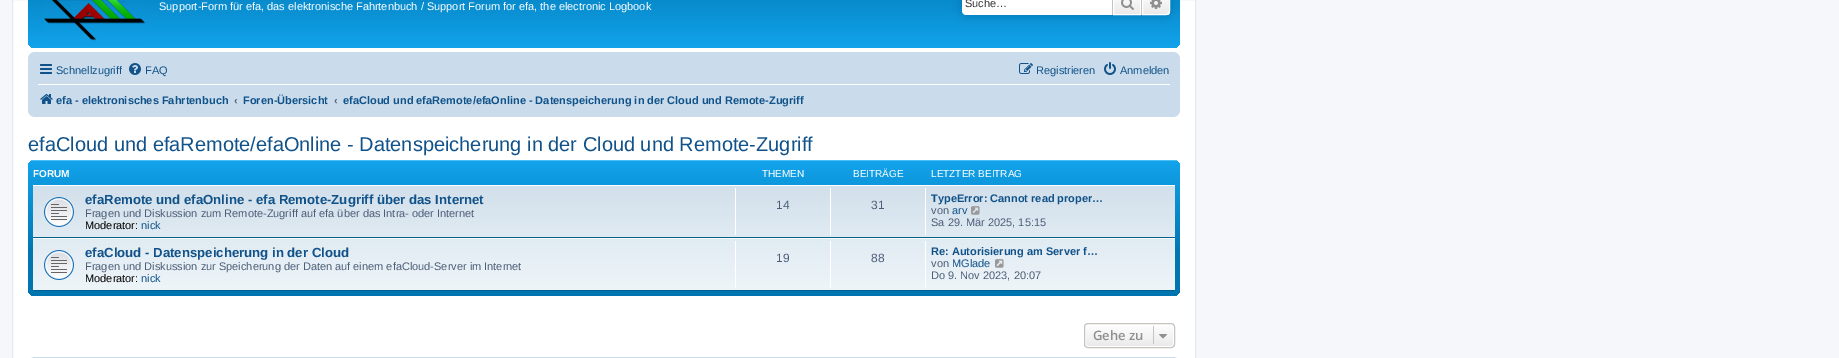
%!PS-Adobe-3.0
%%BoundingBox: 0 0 1839 358
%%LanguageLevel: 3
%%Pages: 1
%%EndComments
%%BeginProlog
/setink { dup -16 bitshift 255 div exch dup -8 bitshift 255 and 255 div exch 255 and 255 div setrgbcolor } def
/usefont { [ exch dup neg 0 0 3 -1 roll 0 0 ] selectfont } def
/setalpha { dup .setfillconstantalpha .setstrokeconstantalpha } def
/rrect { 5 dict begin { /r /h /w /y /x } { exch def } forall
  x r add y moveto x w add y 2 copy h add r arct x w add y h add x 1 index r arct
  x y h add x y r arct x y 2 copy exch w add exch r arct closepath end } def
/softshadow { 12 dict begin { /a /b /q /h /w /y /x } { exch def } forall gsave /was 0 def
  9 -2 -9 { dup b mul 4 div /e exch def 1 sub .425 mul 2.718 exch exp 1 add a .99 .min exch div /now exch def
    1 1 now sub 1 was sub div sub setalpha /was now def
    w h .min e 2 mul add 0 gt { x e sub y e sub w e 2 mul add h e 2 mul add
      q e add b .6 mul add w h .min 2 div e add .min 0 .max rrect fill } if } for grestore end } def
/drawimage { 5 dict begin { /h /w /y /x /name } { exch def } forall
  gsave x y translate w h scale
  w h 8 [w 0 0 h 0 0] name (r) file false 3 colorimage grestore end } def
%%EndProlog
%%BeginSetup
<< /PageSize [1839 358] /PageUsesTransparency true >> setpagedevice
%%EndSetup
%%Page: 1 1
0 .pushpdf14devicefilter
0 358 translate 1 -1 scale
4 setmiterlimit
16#F5F7FA setink
0 0 1839 358 rectfill
16#FFFFFF setink
12.5 -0.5 moveto 1195.5 -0.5 lineto 1195.5 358.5 lineto 12.5 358.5 lineto closepath gsave fill grestore
16#E6E9ED setink
stroke
gsave 28 -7 1152 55 7 rrect clip newpath
<< /ShadingType 2 /ColorSpace /DeviceRGB /Coords [604 -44 604 48] /Extend [true true] /Function << /FunctionType 3 /Domain [0 1] /Functions [<< /FunctionType 2 /Domain [0 1] /C0 [0.416 0.808 1] /C1 [0 0.463 0.694] /N 1 >> << /FunctionType 2 /Domain [0 1] /C0 [0 0.463 0.694] /C1 [0.071 0.639 0.922] /N 1 >>] /Bounds [0.02] /Encode [0 1 0 1] >> >> shfill grestore
(img1.raw) 44 0 102 41 drawimage
/LiberationSans-Regular 11 usefont
16#FFFFFF setink
159 10 moveto (Support-Form für efa, das elektronische Fahrtenbuch / Support Forum for efa, the electronic Logbook) show
16#0075B0 setink
962 -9 208 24 4 5 1 softshadow
16#FFFFFF setink
966 -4 moveto 1112 -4 lineto 1112 15 lineto 966 15 lineto 964 15 962 13 962 11 curveto 962 0 lineto 962 -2 964 -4 966 -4 curveto closepath fill
16#333333 setink
965 7 moveto (Suche…) show
gsave 1114 0 moveto 1140 0 lineto 1140 14 lineto 1114 14 lineto closepath clip newpath
<< /ShadingType 2 /ColorSpace /DeviceRGB /Coords [1127 -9 1127 15] /Extend [true true] /Function << /FunctionType 2 /Domain [0 1] /C0 [1 1 1] /C1 [0.914 0.914 0.914] /N 1 >> >> shfill grestore
16#FFFFFF setink
1113.5 -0.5 27 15 rectstroke
16#C7C3BF setink
1141 0 1 15 rectfill
1112 0 1 15 rectfill
(img2.raw) 1121 0 13 10 drawimage
gsave 1142 -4 moveto 1166 -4 lineto 1168 -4 1170 -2 1170 0 curveto 1170 11 lineto 1170 13 1168 15 1166 15 curveto 1142 15 lineto closepath clip newpath
<< /ShadingType 2 /ColorSpace /DeviceRGB /Coords [1156 -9 1156 15] /Extend [true true] /Function << /FunctionType 2 /Domain [0 1] /C0 [1 1 1] /C1 [0.914 0.914 0.914] /N 1 >> >> shfill grestore
16#FFFFFF setink
1142.5 -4.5 moveto 1166 -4.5 lineto 1168 -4.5 1169.5 -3 1169.5 -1 curveto 1169.5 11 lineto 1169.5 13 1168 14.5 1166 14.5 curveto 1142.5 14.5 lineto closepath stroke
(img3.raw) 1150 0 12 9 drawimage
16#CADCEB setink
28 52 1152 65 7 rrect fill
(img4.raw) 40 64 12 10 drawimage
16#105289 setink
56 74 moveto (Schnellzugriff) show
(img5.raw) 129 63 12 12 drawimage
145 74 moveto (FAQ) show
(img6.raw) 1019 63 14 11 drawimage
1036 74 moveto (Registrieren) show
(img7.raw) 1104 62 12 13 drawimage
1120 74 moveto (Anmelden) show
16#FFFFFF setink
38 84 1132 1 rectfill
(img8.raw) 40 94 13 10 drawimage
/LiberationSans-Bold 11 usefont
16#105289 setink
56 104 moveto (efa - elektronisches Fahrtenbuch) show
16#536482 setink
234 104 moveto (‹) show
16#105289 setink
243 104 moveto (Foren-Übersicht) show
16#536482 setink
334 104 moveto (‹) show
16#105289 setink
343 104 moveto (efaCloud und efaRemote/efaOnline - Datenspeicherung in der Cloud und Remote-Zugriff) show
/LiberationSans-Regular 20 usefont
28 151 moveto (efaCloud und efaRemote/efaOnline - Datenspeicherung in der Cloud und Remote-Zugriff) show
gsave 28 160 1152 136 7 rrect clip newpath
<< /ShadingType 2 /ColorSpace /DeviceRGB /Coords [604 160 604 296] /Extend [true true] /Function << /FunctionType 3 /Domain [0 1] /Functions [<< /FunctionType 2 /Domain [0 1] /C0 [0.416 0.808 1] /C1 [0.071 0.639 0.922] /N 1 >> << /FunctionType 2 /Domain [0 1] /C0 [0.071 0.639 0.922] /C1 [0 0.463 0.694] /N 1 >> << /FunctionType 2 /Domain [0 1] /C0 [0 0.463 0.694] /C1 [0 0.463 0.694] /N 1 >>] /Bounds [0.01 0.68] /Encode [0 1 0 1 0 1] >> >> shfill grestore
/LiberationSans-Bold 10 usefont
16#FFFFFF setink
33 177 moveto (FORUM) show
/LiberationSans-Regular 10 usefont
[
    [(THEMEN) 762 177]
    [(BEITRÄGE) 853 177]
    [(LETZTER BEITRAG) 931 177]
] { aload pop moveto show } forall
gsave 33 186 moveto 1175 186 lineto 1175 290 lineto 33 290 lineto closepath clip newpath
<< /ShadingType 2 /ColorSpace /DeviceRGB /Coords [604 185 604 291] /Extend [true true] /Function << /FunctionType 2 /Domain [0 1] /C0 [0.824 0.878 0.922] /C1 [0.933 0.961 0.976] /N 1 >> >> shfill grestore
33 185 1142 1 rectfill
16#00608F setink
33 237 1142 1 rectfill
(img9.raw) 44 197 30 30 drawimage
/LiberationSans-Bold 13.2 usefont
16#105289 setink
85 204 moveto (efaRemote und efaOnline - efa Remote-Zugriff über das Internet) show
/LiberationSans-Regular 11 usefont
16#4C5D77 setink
85 217 moveto (Fragen und Diskussion zum Remote-Zugriff auf efa über das Intra- oder Internet) show
16#000000 setink
85 229 moveto (Moderator:) show
16#105289 setink
141 229 moveto (nick) show
16#FFFFFF setink
735 188 1 47 rectfill
/LiberationSans-Regular 12 usefont
16#4C5D77 setink
776 209 moveto (14) show
16#FFFFFF setink
830 188 1 47 rectfill
16#4C5D77 setink
871 209 moveto (31) show
16#FFFFFF setink
925 188 1 47 rectfill
/LiberationSans-Bold 11 usefont
16#105289 setink
931 202 moveto (TypeError: Cannot read proper…) show
/LiberationSans-Regular 11 usefont
16#4C5D77 setink
931 214 moveto (von) show
16#105289 setink
952 214 moveto (arv) show
(img10.raw) 971 206 9 9 drawimage
16#4C5D77 setink
931 226 moveto (Sa 29. Mär 2025, 15:15) show
16#FFFFFF setink
33 238 1142 1 rectfill
16#00608F setink
33 290 1142 1 rectfill
(img11.raw) 44 250 30 30 drawimage
/LiberationSans-Bold 13.2 usefont
16#105289 setink
85 257 moveto (efaCloud - Datenspeicherung in der Cloud) show
/LiberationSans-Regular 11 usefont
16#4C5D77 setink
85 270 moveto (Fragen und Diskussion zur Speicherung der Daten auf einem efaCloud-Server im Internet) show
16#000000 setink
85 282 moveto (Moderator:) show
16#105289 setink
141 282 moveto (nick) show
16#FFFFFF setink
735 241 1 47 rectfill
/LiberationSans-Regular 12 usefont
16#4C5D77 setink
776 262 moveto (19) show
16#FFFFFF setink
830 241 1 47 rectfill
16#4C5D77 setink
871 262 moveto (88) show
16#FFFFFF setink
925 241 1 47 rectfill
/LiberationSans-Bold 11 usefont
16#105289 setink
931 255 moveto (Re: Autorisierung am Server f…) show
/LiberationSans-Regular 11 usefont
16#4C5D77 setink
931 267 moveto (von) show
16#105289 setink
952 267 moveto (MGlade) show
(img12.raw) 995 259 9 9 drawimage
16#4C5D77 setink
931 279 moveto (Do 9. Nov 2023, 20:07) show
gsave
1084 323 91 25 4 rrect clip newpath
gsave 1084 324 moveto 1175 324 lineto 1175 347 lineto 1084 347 lineto closepath clip newpath
<< /ShadingType 2 /ColorSpace /DeviceRGB /Coords [1130 324 1130 347] /Extend [true true] /Function << /FunctionType 2 /Domain [0 1] /C0 [1 1 1] /C1 [0.914 0.914 0.914] /N 1 >> >> shfill grestore
grestore
16#FFFFFF setink
1085.5 324.5 88 22 2.5 rrect stroke
16#C7C3BF setink
1084.5 323.5 90 24 3.5 rrect stroke
/OpenSans-SemiBold 13 usefont
16#8F8F8F setink
1093 340 moveto (Gehe zu) show
16#C7C3BF setink
1153 326 1 18 rectfill
(img13.raw) 1159 334 8 5 drawimage
16#CADCEB setink
28 357 1152 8 7 rrect fill
.poppdf14devicefilter showpage
%%EOF
